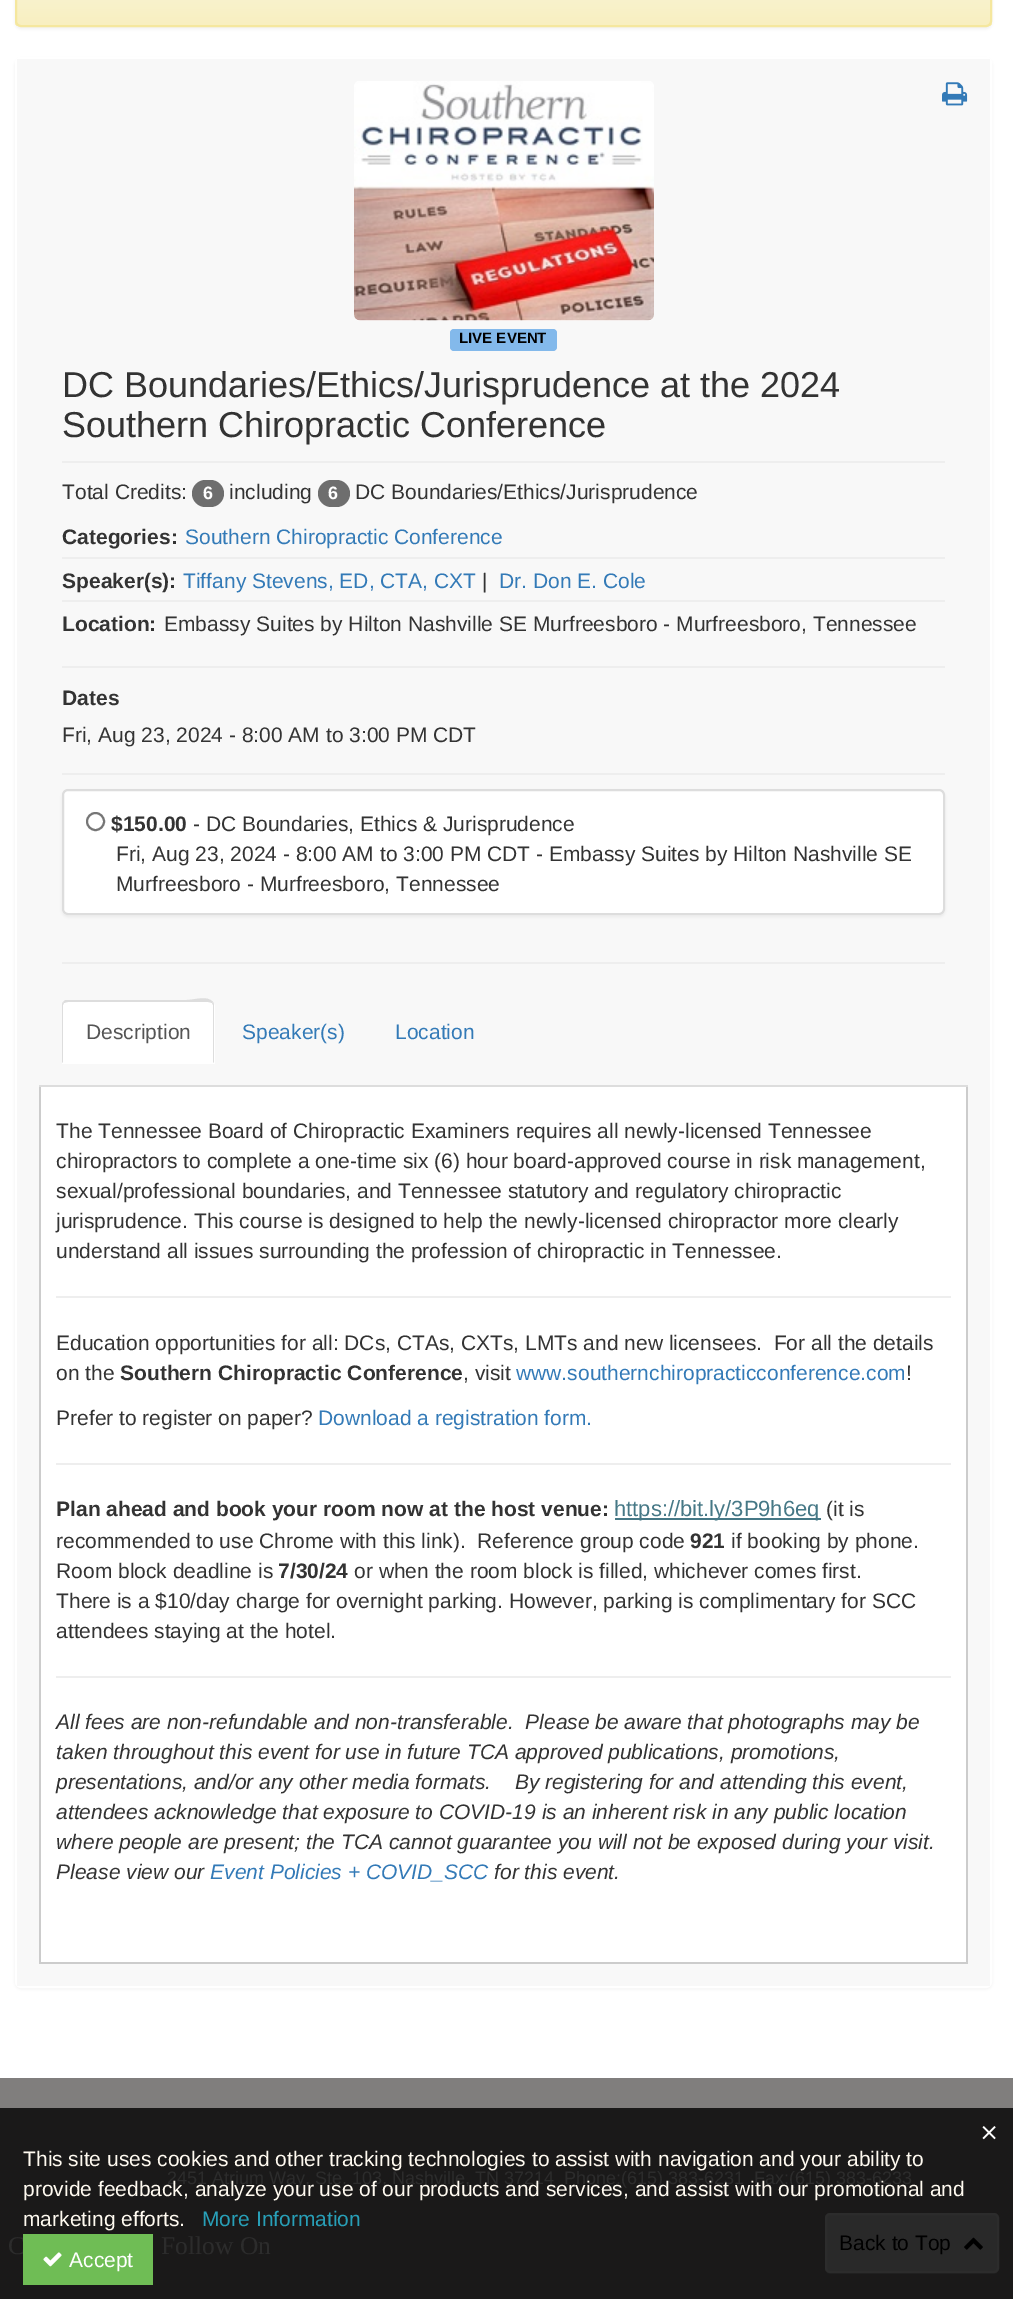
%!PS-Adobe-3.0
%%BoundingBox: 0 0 1013 2299
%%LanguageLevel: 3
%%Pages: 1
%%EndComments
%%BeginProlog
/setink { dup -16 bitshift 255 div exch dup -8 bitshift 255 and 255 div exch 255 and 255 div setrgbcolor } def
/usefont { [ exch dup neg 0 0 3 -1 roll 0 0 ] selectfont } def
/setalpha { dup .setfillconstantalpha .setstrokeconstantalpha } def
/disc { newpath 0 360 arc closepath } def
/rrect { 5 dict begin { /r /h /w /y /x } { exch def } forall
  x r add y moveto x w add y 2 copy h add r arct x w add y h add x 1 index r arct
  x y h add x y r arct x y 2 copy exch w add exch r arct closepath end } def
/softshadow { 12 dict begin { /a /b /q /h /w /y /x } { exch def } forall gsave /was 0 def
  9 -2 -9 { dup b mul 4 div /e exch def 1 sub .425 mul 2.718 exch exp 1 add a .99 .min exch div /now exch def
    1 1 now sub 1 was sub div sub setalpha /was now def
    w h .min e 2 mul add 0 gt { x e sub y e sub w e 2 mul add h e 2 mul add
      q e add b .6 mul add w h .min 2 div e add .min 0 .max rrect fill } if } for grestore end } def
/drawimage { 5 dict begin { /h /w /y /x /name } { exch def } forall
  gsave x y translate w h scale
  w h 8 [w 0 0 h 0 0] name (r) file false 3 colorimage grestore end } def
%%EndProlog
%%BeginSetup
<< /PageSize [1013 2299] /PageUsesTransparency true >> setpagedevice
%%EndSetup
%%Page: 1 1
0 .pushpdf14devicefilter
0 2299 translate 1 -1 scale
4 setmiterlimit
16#FFFFFF setink
0 0 1013 2299 rectfill
16#000000 setink
15 -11 977 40 6 1.5 0.05 softshadow
gsave
15 -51 977 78 6 rrect clip newpath
gsave 15 0 moveto 992 0 lineto 992 26 lineto 15 26 lineto closepath clip newpath
<< /ShadingType 2 /ColorSpace /DeviceRGB /Coords [503 -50 503 26] /Extend [true true] /Function << /FunctionType 2 /Domain [0 1] /C0 [0.988 0.973 0.89] /C1 [0.973 0.937 0.753] /N 1 >> >> shfill grestore
grestore
16#F5E79E setink
2 setlinewidth
16 -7 975 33 5 rrect stroke
16#000000 setink
15 59 977 1930 6 1.5 0.05 softshadow
16#FFFFFF setink
16 58 975 1929 5 rrect stroke
16#F8F8F8 setink
17 59 973 1927 rectfill
16#FFFFFF setink
354 81 300 240 6 rrect fill
(img1.raw) 354 81 300 240 drawimage
(img2.raw) 942 82 26 24 drawimage
16#83B9EB setink
450 329 107 22 4 rrect fill
/LiberationSans-Bold 15 usefont
16#000000 setink
459 343 moveto (LIVE EVENT) show
/LiberationSans-Regular 36 usefont
16#333333 setink
62 397 moveto (DC Boundaries/Ethics/Jurisprudence at the 2024) show
62 437 moveto (Southern Chiropractic Conference) show
16#EEEEEE setink
62 461 883 2 rectfill
/LiberationSans-Regular 21 usefont
16#333333 setink
62 499 moveto (Total Credits:) show
16#6E6E6E setink
192 480 32 27 13.5 rrect fill
/LiberationSans-Bold 18 usefont
16#FFFFFF setink
203 499 moveto (6) show
/LiberationSans-Regular 21 usefont
16#333333 setink
229 499 moveto (including) show
16#6E6E6E setink
318 480 32 27 13.5 rrect fill
/LiberationSans-Bold 18 usefont
16#FFFFFF setink
328 499 moveto (6) show
/LiberationSans-Regular 21 usefont
16#333333 setink
355 499 moveto (DC Boundaries/Ethics/Jurisprudence) show
/LiberationSans-Bold 21 usefont
62 544 moveto (Categories:) show
16#EEEEEE setink
62 557 883 2 rectfill
/LiberationSans-Regular 21 usefont
16#337AB7 setink
185 544 moveto (Southern Chiropractic Conference) show
/LiberationSans-Bold 21 usefont
16#333333 setink
62 588 moveto (Speaker\(s\):) show
16#EEEEEE setink
62 600 883 2 rectfill
/LiberationSans-Regular 21 usefont
16#337AB7 setink
183 588 moveto (Tiffany Stevens, ED, CTA, CXT) show
16#333333 setink
482 588 moveto (|) show
16#337AB7 setink
499 588 moveto (Dr. Don E. Cole) show
/LiberationSans-Bold 21 usefont
16#333333 setink
62 631 moveto (Location:) show
/LiberationSans-Regular 21 usefont
164 631 moveto (Embassy Suites by Hilton Nashville SE Murfreesboro - Murfreesboro, Tennessee) show
16#EEEEEE setink
62 666 883 2 rectfill
/LiberationSans-Bold 21 usefont
16#333333 setink
62 705 moveto (Dates) show
/LiberationSans-Regular 21 usefont
62 742 moveto (Fri, Aug 23, 2024 - 8:00 AM to 3:00 PM CDT) show
16#EEEEEE setink
62 773 883 2 rectfill
16#000000 setink
62 791 883 126 6 1.5 0.05 softshadow
16#FFFFFF setink
63 790 881 124 5 rrect stroke
63 790 881 124 5 rrect gsave fill grestore
16#DDDDDD setink
stroke
16#767676 setink
95.5 821.5 8.5 disc stroke
/LiberationSans-Bold 21 usefont
16#333333 setink
111 831 moveto ($150.00) show
/LiberationSans-Regular 21 usefont
[
    [(- DC Boundaries, Ethics & Jurisprudence) 193 831]
    [(Fri, Aug 23, 2024 - 8:00 AM to 3:00 PM CDT - Embassy Suites by Hilton Nashville SE) 116 861]
    [(Murfreesboro - Murfreesboro, Tennessee) 116 891]
] { aload pop moveto show } forall
[
    [62 962 883 2 16#EEEEEE]
    [39 1962 929 2 16#CCCCCC]
    [966 1086 2 876 16#CCCCCC]
    [39 1086 2 876 16#CCCCCC]
    [39 1085 929 2 16#DDDDDD]
] { aload pop setink rectfill } forall
16#FFFFFF setink
68 1001 moveto 209 1001 lineto 212.5 1001 215 1003.5 215 1007 curveto 215 1064 lineto 62 1064 lineto 62 1007 lineto 62 1003.5 64.5 1001 68 1001 curveto closepath fill
16#DDDDDD setink
68 1002 moveto 66 1002 65 1003 64 1003 curveto 63 1002 lineto 65 1000 lineto 186 1000 lineto 195 1000 207 995 213 1002 curveto 212 1003 lineto 211 1003 210 1002 208 1002 curveto closepath fill
213 1002 moveto 214 1003 214 1005 214 1006 curveto 214 1063 lineto 213 1062 lineto 213 1005 lineto 212 1003 lineto closepath fill
62 1063 moveto 62 1006 lineto 62 1005 62 1003 63 1002 curveto 64 1003 lineto 63 1005 lineto 63 1062 lineto closepath fill
16#555555 setink
86 1039 moveto (Description) show
16#337AB7 setink
242 1039 moveto (Speaker\(s\)) show
395 1039 moveto (Location) show
16#FFFFFF setink
41 1087 925 875 rectfill
16#333333 setink
[
    [(The Tennessee Board of Chiropractic Examiners requires all newly-licensed Tennessee) 56 1138]
    [(chiropractors to complete a one-time six \(6\) hour board-approved course in risk management,) 56 1168]
    [(sexual/professional boundaries, and Tennessee statutory and regulatory chiropractic) 56 1198]
    [(jurisprudence. This course is designed to help the newly-licensed chiropractor more clearly) 56 1228]
    [(understand all issues surrounding the profession of chiropractic in Tennessee.) 56 1258]
] { aload pop moveto show } forall
16#EEEEEE setink
56 1296 895 2 rectfill
16#333333 setink
56 1350 moveto (Education opportunities for all: DCs, CTAs, CXTs, LMTs and new licensees.  For all the details) show
56 1380 moveto (on the) show
/LiberationSans-Bold 21 usefont
120 1380 moveto (Southern Chiropractic Conference) show
/LiberationSans-Regular 21 usefont
463 1380 moveto (, visit) show
16#337AB7 setink
516 1380 moveto (www.southernchiropracticconference.com) show
16#333333 setink
906 1380 moveto (!) show
56 1425 moveto (Prefer to register on paper?) show
16#337AB7 setink
318 1425 moveto (Download a registration form.) show
16#EEEEEE setink
56 1463 895 2 rectfill
/LiberationSans-Bold 21 usefont
16#333333 setink
56 1516 moveto (Plan ahead and book your room now at the host venue:) show
16#467886 setink
615 1518 206 2 rectfill
/LiberationSans-Regular 22 usefont
614 1516 moveto (https://bit.ly/3P9h6eq) show
/LiberationSans-Regular 21 usefont
16#333333 setink
826 1516 moveto (\(it is) show
56 1548 moveto (recommended to use Chrome with this link\).  Reference group code) show
/LiberationSans-Bold 21 usefont
690 1548 moveto (921) show
/LiberationSans-Regular 21 usefont
731 1548 moveto (if booking by phone.) show
56 1578 moveto (Room block deadline is) show
/LiberationSans-Bold 21 usefont
278 1578 moveto (7/30/24) show
/LiberationSans-Regular 21 usefont
[
    [(or when the room block is filled, whichever comes first.) 354 1578]
    [(There is a $10/day charge for overnight parking. However, parking is complimentary for SCC) 56 1608]
    [(attendees staying at the hotel.) 56 1638]
] { aload pop moveto show } forall
16#EEEEEE setink
56 1676 895 2 rectfill
/LiberationSans-Italic 21 usefont
16#333333 setink
[
    [(All fees are non-refundable and non-transferable.  Please be aware that photographs may be) 56 1729]
    [(taken throughout this event for use in future TCA approved publications, promotions,) 56 1759]
    [(presentations, and/or any other media formats.    By registering for and attending this event,) 56 1789]
    [(attendees acknowledge that exposure to COVID-19 is an inherent risk in any public location) 56 1819]
    [(where people are present; the TCA cannot guarantee you will not be exposed during your visit.) 56 1849]
    [(Please view our) 56 1879]
] { aload pop moveto show } forall
16#337AB7 setink
210 1879 moveto (Event Policies + COVID_SCC) show
16#333333 setink
494 1879 moveto (for this event.) show
16#1A1919 setink
0 2108 1013 191 rectfill
16#1C1C1C setink
825 2268 moveto 825 2271 826 2273 829 2274 curveto 994 2274 lineto 997 2274 999 2271 999 2268 curveto 998 2271 lineto 994 2272 lineto 830 2272 lineto 827 2272 825 2270 825 2268 curveto closepath fill
16#292929 setink
826 2214 172 58 4 rrect gsave fill grestore
16#2C2C2C setink
stroke
/LiberationSans-Regular 21 usefont
16#000000 setink
839 2250 moveto (Back to Top) show
(img3.raw) 964 2237 19 13 drawimage
(img4.raw) 982 2126 14 14 drawimage
16#FFFAF0 setink
23 2166 moveto (This site uses cookies and other tracking technologies to assist with navigation and your ability to) show
/LiberationSans-Regular 18 usefont
16#2C2C2C setink
167 2184 moveto (2451 Atrium Way, Ste. 103, Nashville, TN 37214  Phone:\(615\) 383-6231  Fax:\(615\) 383-6233) show
/LiberationSans-Regular 21 usefont
16#FFFAF0 setink
23 2196 moveto (provide feedback, analyze your use of our products and services, and assist with our promotional and) show
23 2226 moveto (marketing efforts.) show
16#289FB7 setink
202 2226 moveto (More Information) show
/LiberationSerif-Regular 25.5 usefont
16#2C2C2C setink
8 2254 moveto (C) show
16#6FBD55 setink
23 2234 130 51 rectfill
(img5.raw) 43 2252 19 15 drawimage
/LiberationSans-Regular 21 usefont
16#FFFFFF setink
69 2267 moveto (Accept) show
16#807E7D setink
0 2078 1013 30 rectfill
/LiberationSerif-Regular 25.5 usefont
16#2C2C2C setink
161 2254 moveto (Follow On) show
.poppdf14devicefilter showpage
%%EOF
